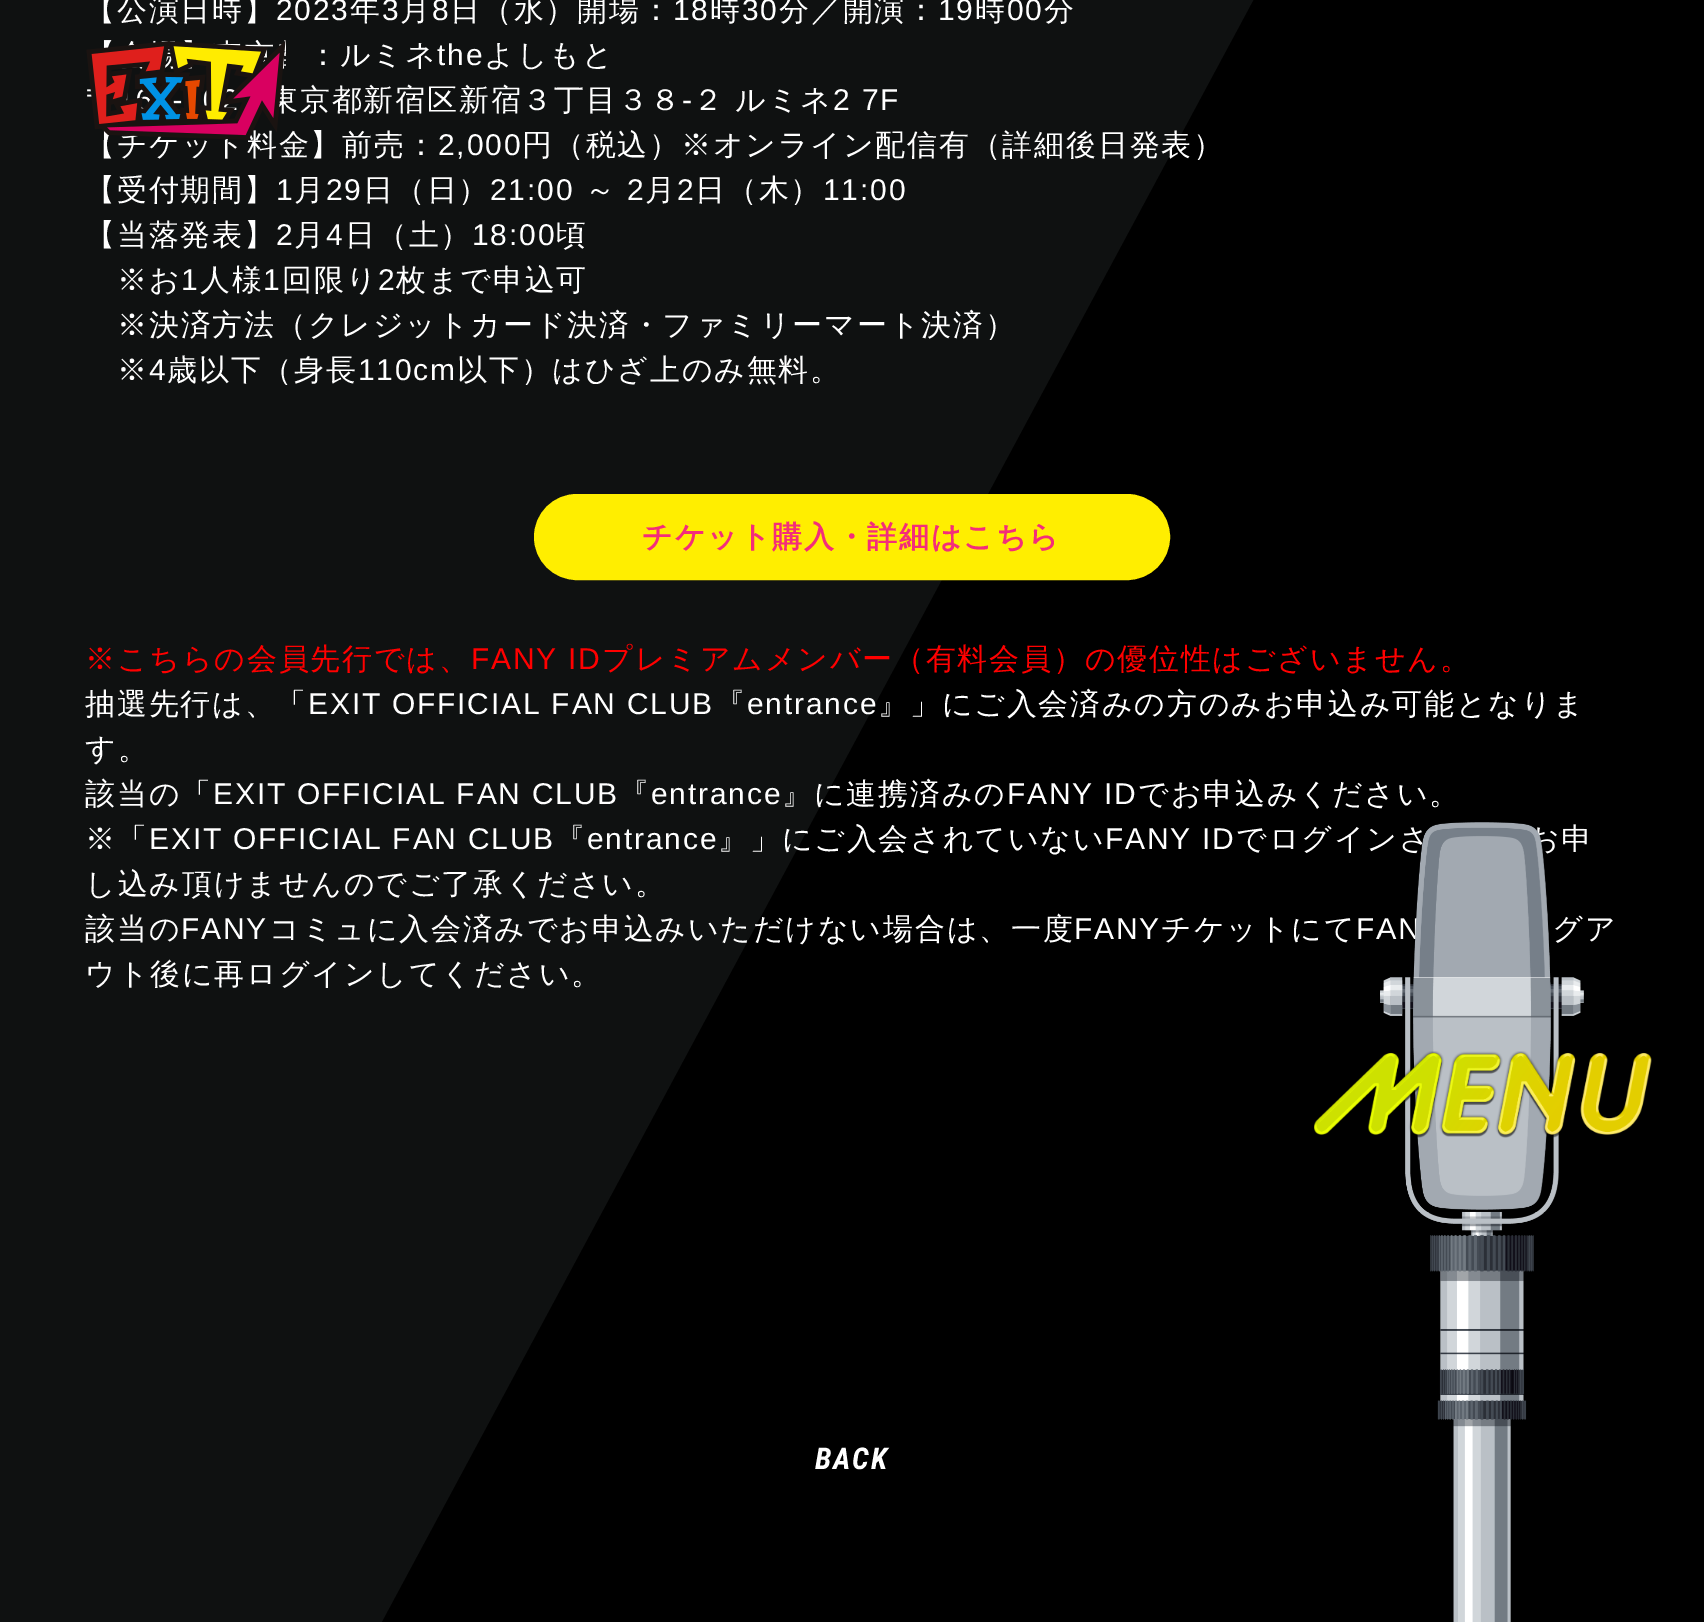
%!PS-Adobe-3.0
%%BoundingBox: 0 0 1704 1622
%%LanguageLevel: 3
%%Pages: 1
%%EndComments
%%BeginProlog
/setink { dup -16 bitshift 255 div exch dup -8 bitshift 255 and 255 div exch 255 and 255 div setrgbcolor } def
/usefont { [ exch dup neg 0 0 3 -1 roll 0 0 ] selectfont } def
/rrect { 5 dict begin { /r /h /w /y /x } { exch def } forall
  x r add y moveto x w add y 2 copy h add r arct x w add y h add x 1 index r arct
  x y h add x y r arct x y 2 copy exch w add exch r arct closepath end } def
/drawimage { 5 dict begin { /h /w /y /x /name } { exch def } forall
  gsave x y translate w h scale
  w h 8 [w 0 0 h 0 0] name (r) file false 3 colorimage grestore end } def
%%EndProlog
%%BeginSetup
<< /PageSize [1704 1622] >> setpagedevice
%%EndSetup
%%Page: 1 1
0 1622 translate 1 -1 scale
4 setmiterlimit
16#0F1111 setink
0 0 1704 1622 rectfill
/WenQuanYiZenHei-Medium 30 usefont
16#FFFFFF setink
85 20 moveto 1.8 0 (【公演日時】) ashow
/LiberationSans-Regular 30 usefont
276 20 moveto 1.8 0 (2023) ashow
/WenQuanYiZenHei-Medium 30 usefont
350 20 moveto 1.8 0 (年) ashow
16#000000 setink
7 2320 moveto 1675 -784 lineto 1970 -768 lineto 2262 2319 lineto closepath fill
/LiberationSans-Regular 30 usefont
16#FFFFFF setink
382 20 moveto 1.8 0 (3) ashow
/WenQuanYiZenHei-Medium 30 usefont
400 20 moveto 1.8 0 (月) ashow
/LiberationSans-Regular 30 usefont
432 20 moveto 1.8 0 (8) ashow
/WenQuanYiZenHei-Medium 30 usefont
450 20 moveto 1.8 0 (日（水）開場：) ashow
/LiberationSans-Regular 30 usefont
673 20 moveto 1.8 0 (18) ashow
/WenQuanYiZenHei-Medium 30 usefont
710 20 moveto 1.8 0 (時) ashow
/LiberationSans-Regular 30 usefont
742 20 moveto 1.8 0 (30) ashow
/WenQuanYiZenHei-Medium 30 usefont
779 20 moveto 1.8 0 (分／開演：) ashow
/LiberationSans-Regular 30 usefont
938 20 moveto 1.8 0 (19) ashow
/WenQuanYiZenHei-Medium 30 usefont
975 20 moveto 1.8 0 (時) ashow
/LiberationSans-Regular 30 usefont
1007 20 moveto 1.8 0 (00) ashow
/WenQuanYiZenHei-Medium 30 usefont
1044 20 moveto 1.8 0 (分) ashow
308 65 moveto 1.8 0 (：ルミネ) ashow
/LiberationSans-Regular 30 usefont
437 65 moveto 1.8 0 (the) ashow
/WenQuanYiZenHei-Medium 30 usefont
484 65 moveto 1.8 0 (よしもと) ashow
/LiberationSans-Regular 30 usefont
172 110 moveto 1.8 0 (-) ashow
/WenQuanYiZenHei-Medium 30 usefont
268 110 moveto 1.8 0 (東京都新宿区新宿３丁目３８) ashow
/LiberationSans-Regular 30 usefont
682 110 moveto 1.8 0 (-) ashow
/WenQuanYiZenHei-Medium 30 usefont
693 110 moveto 1.8 0 (２) ashow
735 110 moveto 1.8 0 (ルミネ) ashow
/LiberationSans-Regular 30 usefont
833 110 moveto 1.8 0 (2 7F) ashow
/WenQuanYiZenHei-Medium 30 usefont
85 155 moveto 1.8 0 (【チケット料金】前売：) ashow
/LiberationSans-Regular 30 usefont
438 155 moveto 1.8 0 (2,000) ashow
/WenQuanYiZenHei-Medium 30 usefont
522 155 moveto 1.8 0 (円（税込）※オンライン配信有（詳細後日発表）) ashow
85 200 moveto 1.8 0 (【受付期間】) ashow
/LiberationSans-Regular 30 usefont
276 200 moveto 1.8 0 (1) ashow
/WenQuanYiZenHei-Medium 30 usefont
294 200 moveto 1.8 0 (月) ashow
/LiberationSans-Regular 30 usefont
326 200 moveto 1.8 0 (29) ashow
/WenQuanYiZenHei-Medium 30 usefont
363 200 moveto 1.8 0 (日（日）) ashow
/LiberationSans-Regular 30 usefont
490 200 moveto 1.8 0 (21:00) ashow
/WenQuanYiZenHei-Medium 30 usefont
585 200 moveto 1.8 0 (～) ashow
/LiberationSans-Regular 30 usefont
627 200 moveto 1.8 0 (2) ashow
/WenQuanYiZenHei-Medium 30 usefont
645 200 moveto 1.8 0 (月) ashow
/LiberationSans-Regular 30 usefont
677 200 moveto 1.8 0 (2) ashow
/WenQuanYiZenHei-Medium 30 usefont
695 200 moveto 1.8 0 (日（木）) ashow
/LiberationSans-Regular 30 usefont
823 200 moveto 1.8 0 (11:00) ashow
/WenQuanYiZenHei-Medium 30 usefont
85 245 moveto 1.8 0 (【当落発表】) ashow
/LiberationSans-Regular 30 usefont
276 245 moveto 1.8 0 (2) ashow
/WenQuanYiZenHei-Medium 30 usefont
294 245 moveto 1.8 0 (月) ashow
/LiberationSans-Regular 30 usefont
326 245 moveto 1.8 0 (4) ashow
/WenQuanYiZenHei-Medium 30 usefont
345 245 moveto 1.8 0 (日（土）) ashow
/LiberationSans-Regular 30 usefont
472 245 moveto 1.8 0 (18:00) ashow
/WenQuanYiZenHei-Medium 30 usefont
556 245 moveto 1.8 0 (頃) ashow
117 290 moveto 1.8 0 (※お) ashow
/LiberationSans-Regular 30 usefont
181 290 moveto 1.8 0 (1) ashow
/WenQuanYiZenHei-Medium 30 usefont
200 290 moveto 1.8 0 (人様) ashow
/LiberationSans-Regular 30 usefont
263 290 moveto 1.8 0 (1) ashow
/WenQuanYiZenHei-Medium 30 usefont
282 290 moveto 1.8 0 (回限り) ashow
/LiberationSans-Regular 30 usefont
378 290 moveto 1.8 0 (2) ashow
/WenQuanYiZenHei-Medium 30 usefont
396 290 moveto 1.8 0 (枚まで申込可) ashow
117 335 moveto 1.8 0 (※決済方法（クレジットカード決済・ファミリーマート決済）) ashow
117 380 moveto 1.8 0 (※) ashow
/LiberationSans-Regular 30 usefont
149 380 moveto 1.8 0 (4) ashow
/WenQuanYiZenHei-Medium 30 usefont
167 380 moveto 1.8 0 (歳以下（身長) ashow
/LiberationSans-Regular 30 usefont
358 380 moveto 1.8 0 (110cm) ashow
/WenQuanYiZenHei-Medium 30 usefont
457 380 moveto 1.8 0 (以下）はひざ上のみ無料。) ashow
16#FFEE00 setink
538 498 628 78 39 rrect gsave fill grestore
8 setlinewidth
stroke
/WenQuanYiZenHei-Bold 30 usefont
16#F42D7A setink
642 547 moveto 1.8 0 (チケット購入・詳細はこちら) ashow
/WenQuanYiZenHei-Medium 30 usefont
16#FF0000 setink
85 669 moveto 1.8 0 (※こちらの会員先行では、) ashow
/LiberationSans-Regular 30 usefont
471 669 moveto 1.8 0 (FANY ID) ashow
/WenQuanYiZenHei-Medium 30 usefont
602 669 moveto 1.8 0 (プレミアムメンバー（有料会員）の優位性はございません。) ashow
16#FFFFFF setink
85 714 moveto 1.8 0 (抽選先行は、「) ashow
/LiberationSans-Regular 30 usefont
308 714 moveto 1.8 0 (EXIT OFFICIAL FAN CLUB) ashow
/WenQuanYiZenHei-Medium 30 usefont
715 714 moveto 1.8 0 (『) ashow
/LiberationSans-Regular 30 usefont
747 714 moveto 1.8 0 (entrance) ashow
/WenQuanYiZenHei-Medium 30 usefont
878 714 moveto 1.8 0 (』」にご入会済みの方のみお申込み可能となりま) ashow
85 759 moveto 1.8 0 (す。) ashow
85 804 moveto 1.8 0 (該当の「) ashow
/LiberationSans-Regular 30 usefont
213 804 moveto 1.8 0 (EXIT OFFICIAL FAN CLUB) ashow
/WenQuanYiZenHei-Medium 30 usefont
619 804 moveto 1.8 0 (『) ashow
/LiberationSans-Regular 30 usefont
651 804 moveto 1.8 0 (entrance) ashow
/WenQuanYiZenHei-Medium 30 usefont
782 804 moveto 1.8 0 (』に連携済みの) ashow
/LiberationSans-Regular 30 usefont
1007 804 moveto 1.8 0 (FANY ID) ashow
/WenQuanYiZenHei-Medium 30 usefont
1138 804 moveto 1.8 0 (でお申込みください。) ashow
85 849 moveto 1.8 0 (※「) ashow
/LiberationSans-Regular 30 usefont
149 849 moveto 1.8 0 (EXIT OFFICIAL FAN CLUB) ashow
/WenQuanYiZenHei-Medium 30 usefont
555 849 moveto 1.8 0 (『) ashow
/LiberationSans-Regular 30 usefont
587 849 moveto 1.8 0 (entrance) ashow
/WenQuanYiZenHei-Medium 30 usefont
718 849 moveto 1.8 0 (』」にご入会されていない) ashow
/LiberationSans-Regular 30 usefont
1105 849 moveto 1.8 0 (FANY ID) ashow
/WenQuanYiZenHei-Medium 30 usefont
1236 849 moveto 1.8 0 (でログインさ) ashow
1529 849 moveto 1.8 0 (お申) ashow
85 894 moveto 1.8 0 (し込み頂けませんのでご了承ください。) ashow
85 939 moveto 1.8 0 (該当の) ashow
/LiberationSans-Regular 30 usefont
181 939 moveto 1.8 0 (FANY) ashow
/WenQuanYiZenHei-Medium 30 usefont
269 939 moveto 1.8 0 (コミュに入会済みでお申込みいただけない場合は、一度) ashow
/LiberationSans-Regular 30 usefont
1074 939 moveto 1.8 0 (FANY) ashow
/WenQuanYiZenHei-Medium 30 usefont
1161 939 moveto 1.8 0 (チケットにて) ashow
/LiberationSans-Regular 30 usefont
1356 939 moveto 1.8 0 (FAN) ashow
/WenQuanYiZenHei-Medium 30 usefont
1552 939 moveto 1.8 0 (グア) ashow
85 984 moveto 1.8 0 (ウト後に再ログインしてください。) ashow
/RobotoCondensed-BoldItalic 30 usefont
815 1469 moveto 1.8 0 (BACK) ashow
(img1.raw) 86 40 200 100 drawimage
(img2.raw) 1380 822 204 800 drawimage
(img3.raw) 1314 1051 338 87 drawimage
showpage
%%EOF
